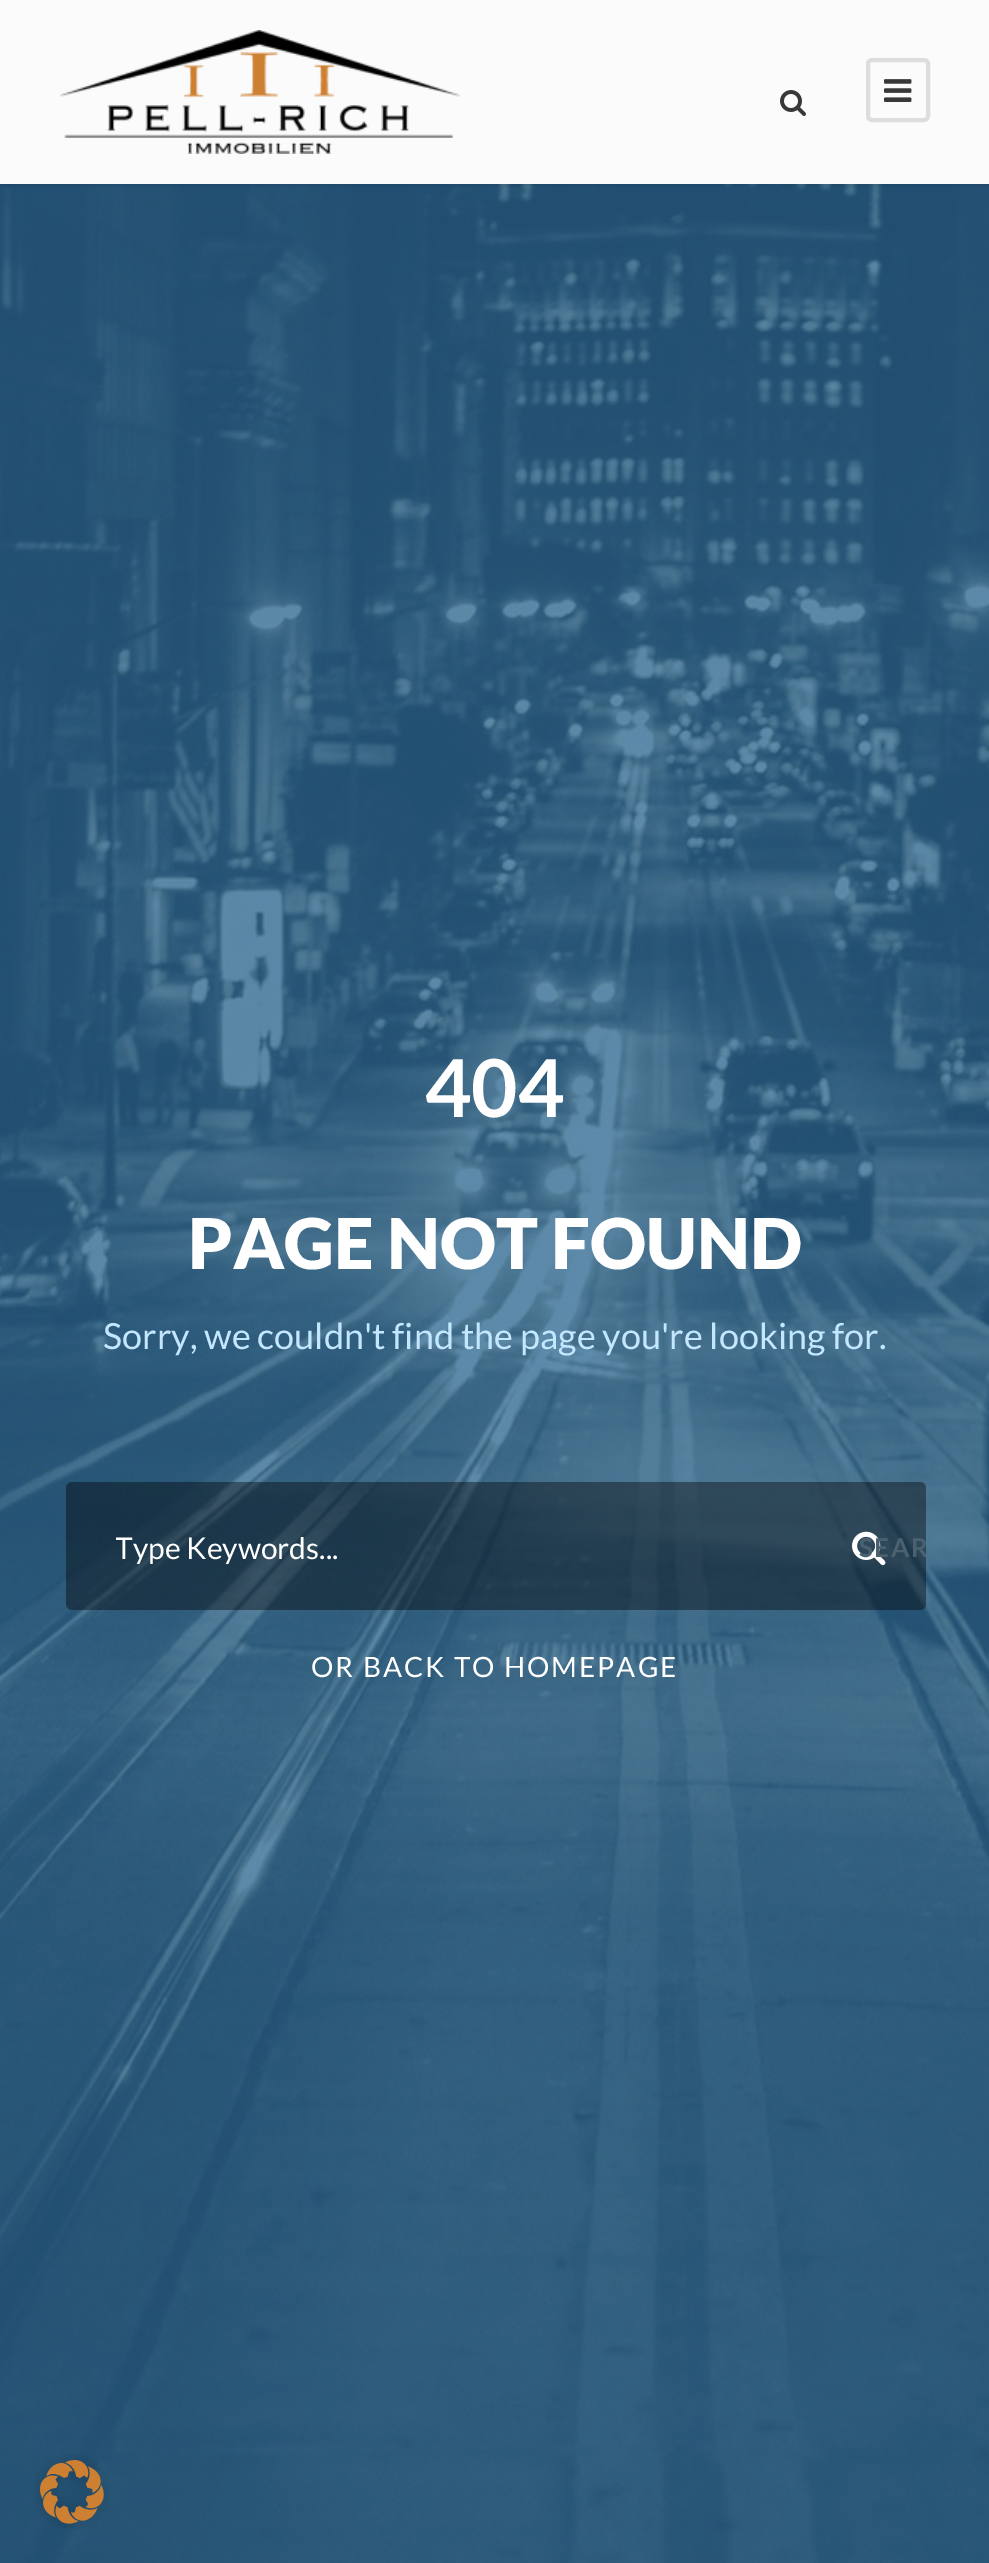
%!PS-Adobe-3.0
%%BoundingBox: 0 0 989 2563
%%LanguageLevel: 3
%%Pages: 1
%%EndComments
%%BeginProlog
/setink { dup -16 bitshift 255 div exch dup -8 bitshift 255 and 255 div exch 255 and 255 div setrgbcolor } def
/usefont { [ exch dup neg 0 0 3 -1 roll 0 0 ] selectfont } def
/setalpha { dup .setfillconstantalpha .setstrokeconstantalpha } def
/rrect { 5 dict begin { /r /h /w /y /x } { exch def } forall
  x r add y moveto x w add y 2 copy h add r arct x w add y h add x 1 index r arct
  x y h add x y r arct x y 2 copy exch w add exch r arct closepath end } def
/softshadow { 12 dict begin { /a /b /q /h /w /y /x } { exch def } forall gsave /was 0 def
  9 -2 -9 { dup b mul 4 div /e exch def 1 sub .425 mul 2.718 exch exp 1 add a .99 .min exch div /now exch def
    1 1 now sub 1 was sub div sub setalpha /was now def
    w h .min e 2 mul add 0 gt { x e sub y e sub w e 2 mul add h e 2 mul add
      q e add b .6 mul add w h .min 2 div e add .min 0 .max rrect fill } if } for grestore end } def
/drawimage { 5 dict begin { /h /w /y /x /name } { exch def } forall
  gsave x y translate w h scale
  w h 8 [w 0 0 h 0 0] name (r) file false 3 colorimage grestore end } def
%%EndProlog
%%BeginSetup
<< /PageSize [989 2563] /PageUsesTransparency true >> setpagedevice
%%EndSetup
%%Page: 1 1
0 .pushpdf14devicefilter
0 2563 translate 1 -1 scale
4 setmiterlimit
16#23618E setink
0 0 989 2563 rectfill
(img4.raw) 0 184 989 2379 drawimage
16#000000 setink
0 2 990 184 0 2 0.1 softshadow
16#FBFBFB setink
0 0 989 184 rectfill
(img1.raw) 60 30 400 124 drawimage
(img2.raw) 780 90 26 26 drawimage
16#DDDDDD setink
4 setlinewidth
868 60 60 60 4 rrect stroke
(img3.raw) 884 79 28 23 drawimage
/Lato-Bold 80 usefont
16#FFFFFF setink
425 1117 moveto (404) show
/Lato-Black 70 usefont
188 1269 moveto (PAGE NOT FOUND) show
/Lato-Regular 36 usefont
16#C3E7FF setink
103 1349 moveto (Sorry, we couldn't find the page you're looking for.) show
0.4 setalpha
16#000000 setink
66 1482 860 128 6 rrect fill
gsave
116 1528 690 36 rectclip
/Lato-Regular 30 usefont
1 setalpha
16#FFFFFF setink
115 1559 moveto (Type Keywords...) show
grestore
1 setalpha
(img5.raw) 852 1531 34 35 drawimage
gsave
794 1482 132 128 rectclip
/Lato-Bold 26 usefont
16#4B6170 setink
859 1557 moveto 1.5 0 (SEAR) ashow
grestore
/Lato-Regular 28 usefont
16#FFFFFF setink
311 1677 moveto 2 0 (OR BACK TO HOMEPAGE) ashow
(img6.raw) 34 2454 75 75 drawimage
.poppdf14devicefilter showpage
%%EOF
